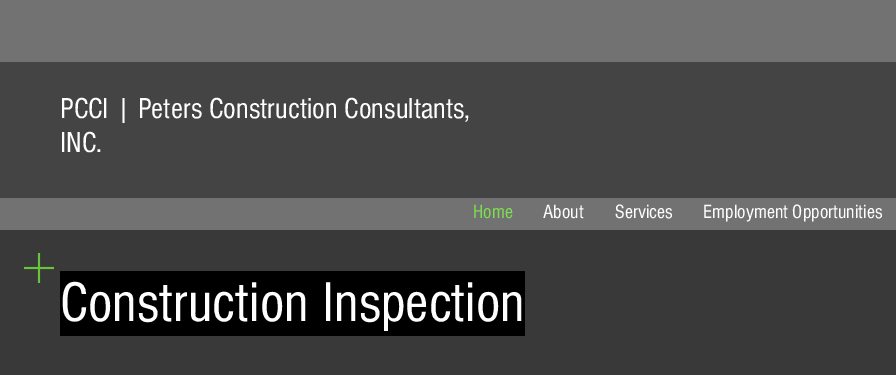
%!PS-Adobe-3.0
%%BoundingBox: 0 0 896 375
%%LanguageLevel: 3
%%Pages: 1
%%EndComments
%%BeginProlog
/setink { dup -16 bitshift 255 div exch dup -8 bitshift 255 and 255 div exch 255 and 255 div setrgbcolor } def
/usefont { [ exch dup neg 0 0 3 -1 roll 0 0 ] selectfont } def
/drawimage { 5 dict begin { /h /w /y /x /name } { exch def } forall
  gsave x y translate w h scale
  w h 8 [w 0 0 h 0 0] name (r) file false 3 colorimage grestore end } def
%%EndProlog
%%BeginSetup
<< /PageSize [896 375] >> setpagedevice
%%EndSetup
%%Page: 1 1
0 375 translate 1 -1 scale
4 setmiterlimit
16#727272 setink
0 0 896 375 rectfill
16#444444 setink
0 62 896 136 rectfill
/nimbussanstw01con-Regular 30 usefont
16#FFFFFF setink
60 118 moveto (PCCI | Peters Construction Consultants,) show
60 152 moveto (INC.) show
/nimbussanstw01con-Regular 20 usefont
16#7EDE52 setink
473 218 moveto (Home) show
16#FFFFFF setink
[
    [(About) 543 218]
    [(Services) 615 218]
    [(Employment Opportunities) 703 218]
] { aload pop moveto show } forall
16#393939 setink
0 230 896 145 rectfill
(img1.raw) 24 253 30 30 drawimage
16#000000 setink
60 271 465 65 rectfill
/nimbussanstw01con-Regular 58 usefont
16#FFFFFF setink
60 321 moveto (Construction Inspection) show
showpage
%%EOF
